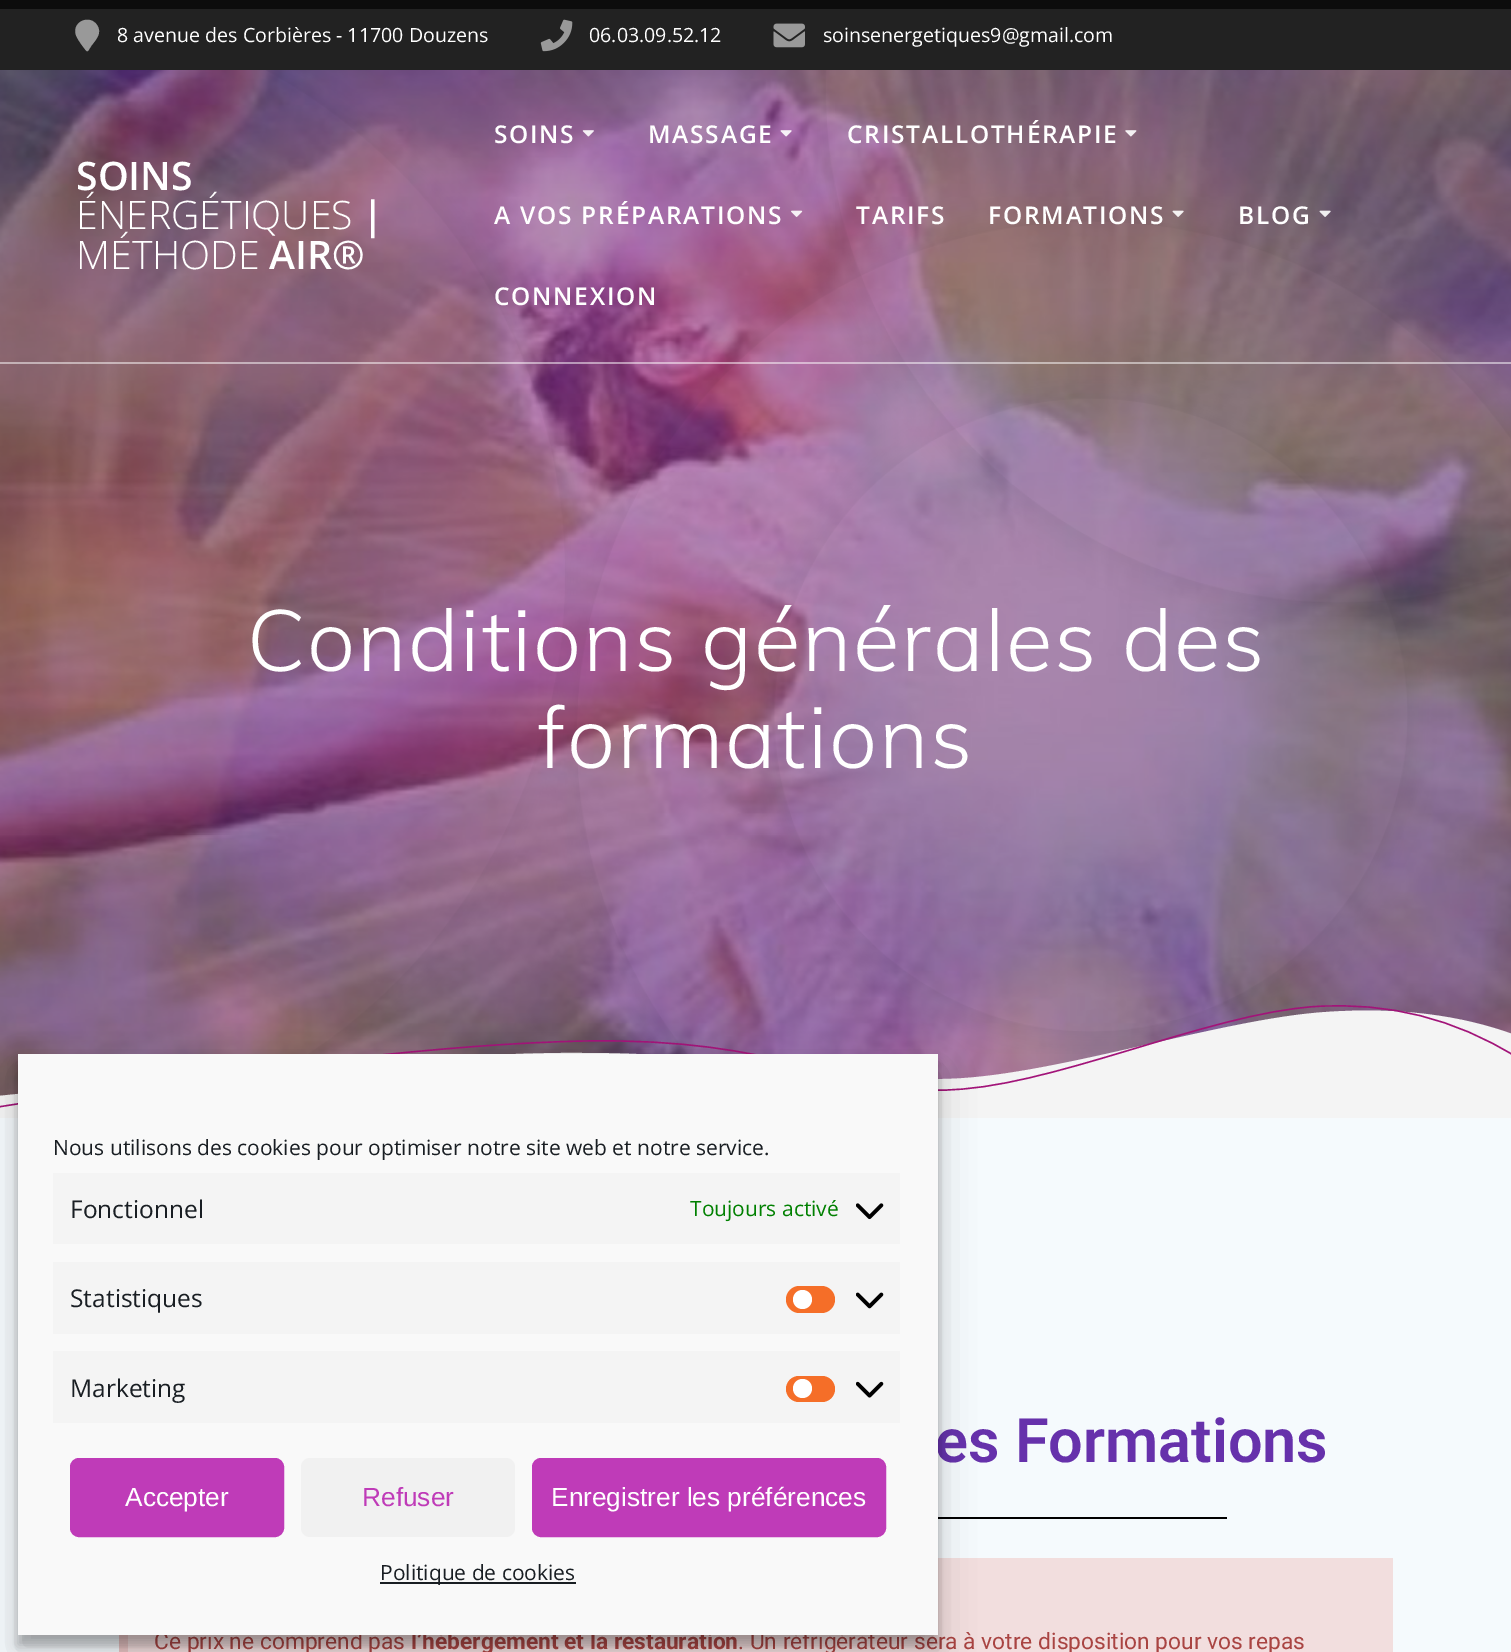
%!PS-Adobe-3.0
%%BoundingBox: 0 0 1511 1652
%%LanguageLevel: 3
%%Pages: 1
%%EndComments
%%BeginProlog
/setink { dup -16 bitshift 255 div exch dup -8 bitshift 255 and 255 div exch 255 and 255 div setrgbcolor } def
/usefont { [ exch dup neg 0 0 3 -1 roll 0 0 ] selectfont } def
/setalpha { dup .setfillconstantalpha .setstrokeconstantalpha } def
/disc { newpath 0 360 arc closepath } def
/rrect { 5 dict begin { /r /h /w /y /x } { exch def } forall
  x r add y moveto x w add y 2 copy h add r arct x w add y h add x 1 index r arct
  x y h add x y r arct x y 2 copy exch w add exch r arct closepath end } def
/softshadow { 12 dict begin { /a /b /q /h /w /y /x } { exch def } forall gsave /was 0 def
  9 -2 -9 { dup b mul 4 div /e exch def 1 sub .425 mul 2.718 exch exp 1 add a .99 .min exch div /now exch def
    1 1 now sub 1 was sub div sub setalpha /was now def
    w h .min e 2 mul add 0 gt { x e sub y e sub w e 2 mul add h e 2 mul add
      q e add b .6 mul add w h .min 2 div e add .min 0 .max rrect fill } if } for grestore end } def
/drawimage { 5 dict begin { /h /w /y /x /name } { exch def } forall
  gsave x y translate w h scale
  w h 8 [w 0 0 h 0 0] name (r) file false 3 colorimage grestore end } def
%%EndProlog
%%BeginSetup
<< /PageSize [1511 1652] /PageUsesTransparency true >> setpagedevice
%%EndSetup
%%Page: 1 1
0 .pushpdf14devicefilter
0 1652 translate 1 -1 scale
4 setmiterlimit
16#FFFFFF setink
0 0 1511 1652 rectfill
16#0C0C0C setink
0 0 1511 9 rectfill
16#222222 setink
0 9 1511 61 rectfill
16#999999 setink
86 50.5 moveto 83 46.5 76.5 38.5 75.5 33.5 curveto 73 21 90 14.5 97 25 curveto 102.5 33 96 39.5 91.5 45.5 curveto 88 51 lineto 87 51.5 86.5 51 86 50.5 curveto closepath fill
/OpenSans-Regular 19.6 usefont
16#FFFFFF setink
117 42 moveto (8 avenue des Corbières - 11700 Douzens) show
(img1.raw) 540 19 33 33 drawimage
589 42 moveto (06.03.09.52.12) show
(img2.raw) 773 23 32 25 drawimage
823 42 moveto (soinsenergetiques9@gmail.com) show
(img9.raw) 0 70 1511 1026 drawimage
(img10.raw) 266 70 1245 984 drawimage
0.5 setalpha
0 362 1511 2 rectfill
/OpenSans-SemiBold 39.25 usefont
1 setalpha
76 190 moveto (SOINS) show
/OpenSans-Light 39.25 usefont
76 229 moveto (ÉNERGÉTIQUES) show
/OpenSans-SemiBold 39.25 usefont
362 229 moveto (|) show
/OpenSans-Light 39.25 usefont
76 269 moveto (MÉTHODE) show
/OpenSans-SemiBold 39.25 usefont
269 269 moveto (AIR®) show
/OpenSans-SemiBold 24.5 usefont
494 143 moveto 1.75 0 (SOINS) ashow
(img3.raw) 582 130 12 7 drawimage
648 143 moveto 1.75 0 (MASSAGE) ashow
(img4.raw) 780 130 12 7 drawimage
847 143 moveto 1.75 0 (CRISTALLOTHÉRAPIE) ashow
(img5.raw) 1125 130 12 7 drawimage
494 224 moveto 1.75 0 (A VOS PRÉPARATIONS) ashow
(img6.raw) 791 210 12 7 drawimage
856 224 moveto 1.75 0 (TARIFS) ashow
988 224 moveto 1.75 0 (FORMATIONS) ashow
(img7.raw) 1172 210 12 7 drawimage
1238 224 moveto 1.75 0 (BLOG) ashow
(img8.raw) 1319 210 12 7 drawimage
494 305 moveto 1.75 0 (CONNEXION) ashow
/Muli-Light 85.75 usefont
247 671 moveto 1.6 0 (Conditions générales des) ashow
538 768 moveto 1.6 0 (formations) ashow
16#F4F4F4 setink
-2 1096 moveto 280 1067 475 1052 582 1053 curveto 744 1053 836 1079 940 1079 curveto 1045 1079 1218 1019 1326 1012 curveto 1398 1007 1461 1015 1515 1035 curveto 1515 1122 lineto -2 1123 lineto closepath fill
16#A21479 setink
1.4 setlinewidth
-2 1107 moveto 258 1065.5 453.5 1043.5 585 1041 curveto 781.5 1037.5 837.5 1090 942 1090 curveto 1046.5 1090 1207.5 1013 1316 1006.5 curveto 1388 1002 1454.5 1018.5 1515.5 1056.5 curveto stroke
16#F5FAFD setink
0 1118 1511 534 rectfill
/Roboto-SemiBold 61.25 usefont
16#6631AB setink
935 1462 moveto (es Formations) show
[
    [938 1517 289 2 16#000000]
    [128 1558 1265 94 16#F2DEDE]
    [119 1635 9 17 16#E8C4C4]
] { aload pop setink rectfill } forall
/Roboto-Regular 22.75 usefont
16#A94442 setink
154 1649 moveto (Ce prix ne comprend pas) show
/Roboto-Bold 22.75 usefont
411 1649 moveto (l’hébergement et la restauration) show
/Roboto-Regular 22.75 usefont
738 1649 moveto (. Un réfrigérateur sera à votre disposition pour vos repas) show
16#000000 setink
18 1064 920 581 0 5 0.23 softshadow
18 1071 920 581 0 17.5 0.19 softshadow
16#F9F9F9 setink
18 1054 920 581 rectfill
/OpenSans-Regular 21 usefont
16#191E23 setink
53 1155 moveto (Nous utilisons des cookies pour optimiser notre site web et notre service.) show
16#F4F4F4 setink
53 1173 847 71 rectfill
/OpenSans-Regular 24.5 usefont
16#191E23 setink
70 1218 moveto (Fonctionnel) show
/OpenSans-Regular 21 usefont
16#008000 setink
690 1216 moveto (Toujours activé) show
(img11.raw) 856 1203 28 17 drawimage
16#F4F4F4 setink
53 1262 847 72 rectfill
/OpenSans-Regular 24.5 usefont
16#191E23 setink
70 1307 moveto (Statistiques) show
16#F56E28 setink
786 1286 49 27 13.5 rrect fill
16#FFFFFF setink
802.5 1299.5 9.5 disc fill
(img12.raw) 856 1292 28 17 drawimage
16#F4F4F4 setink
53 1351 847 72 rectfill
16#191E23 setink
70 1397 moveto (Marketing) show
16#F56E28 setink
786 1376 49 26 13 rrect fill
16#FFFFFF setink
802.5 1388.5 9.5 disc fill
(img13.raw) 856 1381 28 17 drawimage
16#BF3BB8 setink
71 1459 212 77 8 rrect gsave fill grestore
2 setlinewidth
stroke
/LiberationSans-Regular 26.25 usefont
16#FFFFFF setink
125 1506 moveto (Accepter) show
16#F1F1F1 setink
301 1458 214 79 9 rrect fill
16#BF3BB8 setink
362 1506 moveto (Refuser) show
533 1459 352 77 8 rrect gsave fill grestore
stroke
16#FFFFFF setink
551 1506 moveto (Enregistrer les préférences) show
16#191E23 setink
380 1582 196 2 rectfill
/OpenSans-Regular 21 usefont
380 1580 moveto (Politique de cookies) show
.poppdf14devicefilter showpage
%%EOF
